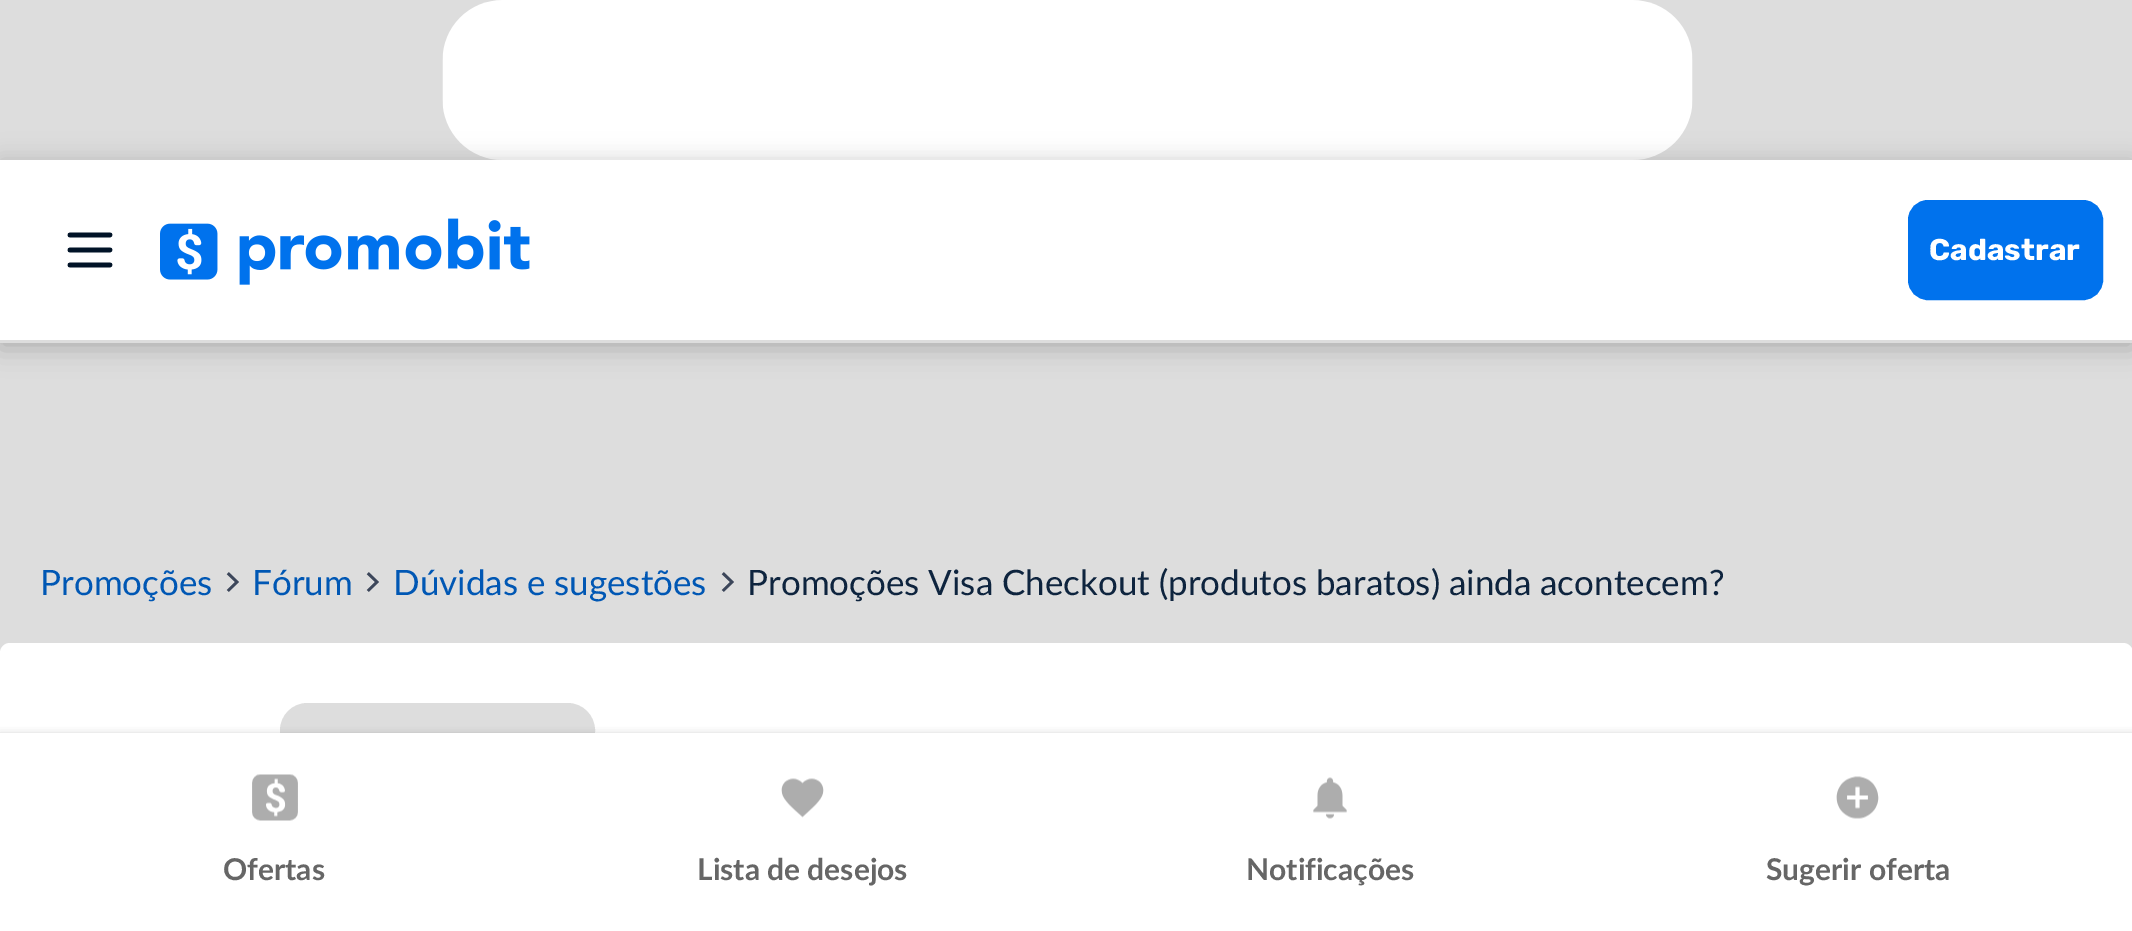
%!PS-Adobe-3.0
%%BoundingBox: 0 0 2132 931
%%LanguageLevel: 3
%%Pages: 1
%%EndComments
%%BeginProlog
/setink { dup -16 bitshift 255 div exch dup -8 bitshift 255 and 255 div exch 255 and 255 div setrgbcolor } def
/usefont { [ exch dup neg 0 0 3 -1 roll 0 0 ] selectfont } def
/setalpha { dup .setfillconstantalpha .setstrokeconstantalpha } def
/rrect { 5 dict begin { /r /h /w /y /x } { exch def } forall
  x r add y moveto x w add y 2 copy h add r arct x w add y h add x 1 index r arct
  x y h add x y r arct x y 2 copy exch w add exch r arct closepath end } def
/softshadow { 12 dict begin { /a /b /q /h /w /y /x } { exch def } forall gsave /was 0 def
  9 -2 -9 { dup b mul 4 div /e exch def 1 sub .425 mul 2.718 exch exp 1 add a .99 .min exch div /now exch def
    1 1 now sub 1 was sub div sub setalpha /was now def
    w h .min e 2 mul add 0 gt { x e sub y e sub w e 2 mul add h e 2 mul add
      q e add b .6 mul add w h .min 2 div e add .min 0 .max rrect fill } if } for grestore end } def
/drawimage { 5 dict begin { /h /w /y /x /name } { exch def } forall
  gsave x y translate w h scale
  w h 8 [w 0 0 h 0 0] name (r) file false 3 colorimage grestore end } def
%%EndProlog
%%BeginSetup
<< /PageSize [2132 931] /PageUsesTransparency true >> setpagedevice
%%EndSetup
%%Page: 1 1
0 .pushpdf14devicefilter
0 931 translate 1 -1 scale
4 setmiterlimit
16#DDDDDD setink
0 0 2132 931 rectfill
(img1.raw) 442 0 1251 160 drawimage
16#575757 setink
0 170 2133 180 0 12.5 0.2 softshadow
0 160 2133 183 0 12.5 0.2 softshadow
16#FFFFFF setink
0 160 2132 180 rectfill
16#DDDDDD setink
0 340 2132 3 rectfill
(img2.raw) 67 232 46 36 drawimage
(img3.raw) 160 218 370 67 drawimage
16#0072ED setink
1909.5 201.5 192 97 18.5 rrect gsave fill grestore
3 setlinewidth
stroke
/Rubik-Bold 30 usefont
16#FFFFFF setink
1929 260 moveto (Cadastrar) show
/Lato-Regular 35 usefont
16#0057B4 setink
40 595 moveto (Promoções) show
(img4.raw) 226 572 13 20 drawimage
252 595 moveto (Fórum) show
(img4.raw) 366 572 13 20 drawimage
393 595 moveto (Dúvidas e sugestões) show
(img4.raw) 721 572 13 20 drawimage
16#0E243E setink
747 595 moveto (Promoções Visa Checkout \(produtos baratos\) ainda acontecem?) show
16#FFFFFF setink
10 643 moveto 2123 643 lineto 2128.5 643 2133 647.5 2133 653 curveto 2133 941 lineto 0 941 lineto 0 653 lineto 0 647.5 4.5 643 10 643 curveto closepath fill
16#DDDDDD setink
281.5 704.5 312 52 26 rrect gsave fill grestore
stroke
16#121212 setink
0 738 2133 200 0 5 0.5 softshadow
16#FFFFFF setink
0 733 2132 198 rectfill
(img5.raw) 252 774 46 47 drawimage
/Lato-Bold 30 usefont
16#666666 setink
223 880 moveto (Ofertas) show
(img6.raw) 781 778 43 40 drawimage
697 880 moveto (Lista de desejos) show
(img7.raw) 1313 777 34 42 drawimage
1246 880 moveto (Notificações) show
(img8.raw) 1836 776 43 43 drawimage
1766 880 moveto (Sugerir oferta) show
.poppdf14devicefilter showpage
%%EOF
